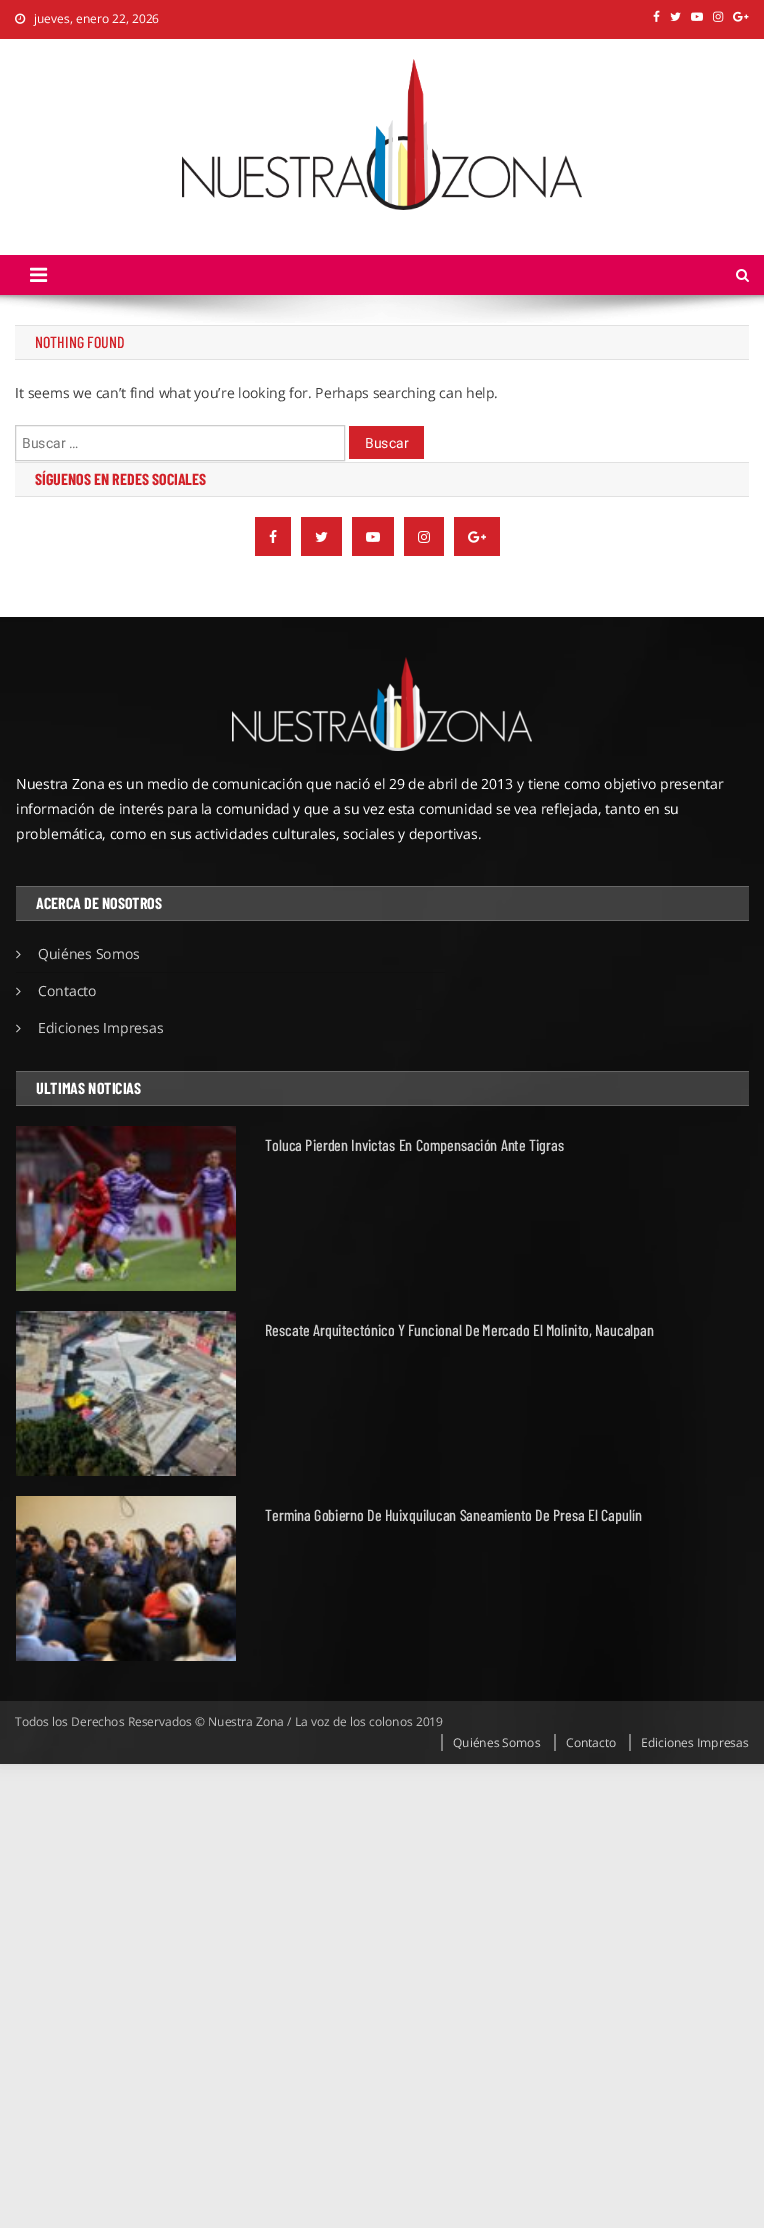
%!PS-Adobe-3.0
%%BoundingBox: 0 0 764 2228
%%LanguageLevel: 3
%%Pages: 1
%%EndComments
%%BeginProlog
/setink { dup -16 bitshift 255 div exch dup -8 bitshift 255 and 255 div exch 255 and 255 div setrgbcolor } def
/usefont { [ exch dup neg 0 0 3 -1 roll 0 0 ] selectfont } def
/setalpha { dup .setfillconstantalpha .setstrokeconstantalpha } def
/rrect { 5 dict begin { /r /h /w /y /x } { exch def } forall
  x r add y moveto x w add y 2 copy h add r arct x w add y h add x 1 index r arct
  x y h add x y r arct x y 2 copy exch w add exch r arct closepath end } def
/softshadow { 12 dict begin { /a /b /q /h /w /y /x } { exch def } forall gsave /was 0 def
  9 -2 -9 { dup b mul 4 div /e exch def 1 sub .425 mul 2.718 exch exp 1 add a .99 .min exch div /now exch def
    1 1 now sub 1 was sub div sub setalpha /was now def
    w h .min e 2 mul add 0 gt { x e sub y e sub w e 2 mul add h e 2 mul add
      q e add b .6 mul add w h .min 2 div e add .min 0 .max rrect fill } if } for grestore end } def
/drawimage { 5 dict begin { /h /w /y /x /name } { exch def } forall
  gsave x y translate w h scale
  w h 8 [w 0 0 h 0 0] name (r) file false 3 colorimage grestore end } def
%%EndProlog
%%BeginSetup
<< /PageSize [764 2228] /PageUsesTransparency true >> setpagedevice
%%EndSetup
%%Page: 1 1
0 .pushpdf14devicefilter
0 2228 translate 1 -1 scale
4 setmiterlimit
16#EAEAEA setink
0 0 764 2228 rectfill
16#000000 setink
0 0 764 1764 0 7.5 0.1 softshadow
16#FFFFFF setink
0 39 764 578 rectfill
16#D22229 setink
0 0 764 39 rectfill
(img1.raw) 15 13 11 11 drawimage
/OpenSans-Regular 12 usefont
16#FFFFFF setink
34 23 moveto (jueves, enero 22, 2026) show
(img2.raw) 653 10 7 12 drawimage
(img3.raw) 670 12 11 9 drawimage
(img4.raw) 691 12 12 9 drawimage
(img5.raw) 713 11 11 11 drawimage
(img6.raw) 733 11 16 11 drawimage
(img7.raw) 182 59 400 151 drawimage
16#DD0051 setink
0 255 764 40 rectfill
(img8.raw) 30 267 18 15 drawimage
(img9.raw) 736 269 13 13 drawimage
(img10.raw) 0 295 764 28 drawimage
[
    [15 326 734 33 16#F7F7F7]
    [15 325 734 1 16#E1E1E1]
    [15 359 734 1 16#E1E1E1]
] { aload pop setink rectfill } forall
/BarlowCondensed-Medium 16 usefont
16#D22229 setink
35 348 moveto (NOTHING FOUND) show
/OpenSans-Regular 14 usefont
16#3D3D3D setink
15 398 moveto (It seems we can’t find what you’re looking for. Perhaps searching can help.) show
16#CCCCCC setink
15.5 425.5 329 35 rectstroke
/Roboto-Regular 14 usefont
16#757575 setink
22 448 moveto (Buscar …) show
16#D22229 setink
349 426 75 33 rectfill
16#FFFFFF setink
365 448 moveto (Buscar) show
[
    [15 463 734 33 16#F7F7F7]
    [15 462 734 1 16#E1E1E1]
    [15 496 734 1 16#E1E1E1]
] { aload pop setink rectfill } forall
/BarlowCondensed-Bold 16 usefont
16#D22229 setink
35 485 moveto (SÍGUENOS EN REDES SOCIALES) show
255 517 36 39 rectfill
(img11.raw) 269 530 8 13 drawimage
301 517 41 39 rectfill
(img12.raw) 315 532 13 10 drawimage
352 517 42 39 rectfill
(img13.raw) 366 532 14 10 drawimage
404 517 40 39 rectfill
(img14.raw) 418 531 12 12 drawimage
454 517 46 39 rectfill
(img15.raw) 468 531 18 12 drawimage
(img16.raw) 0 617 764 1147 drawimage
(img17.raw) 232 657 300 94 drawimage
/OpenSans-Regular 14 usefont
16#FFFFFF setink
[
    [(Nuestra Zona es un medio de comunicación que nació el 29 de abril de 2013 y tiene como objetivo presentar) 16 789]
    [(información de interés para la comunidad y que a su vez esta comunidad se vea reflejada, tanto en su) 16 814]
    [(problemática, como en sus actividades culturales, sociales y deportivas.) 16 839]
] { aload pop moveto show } forall
0.2 setalpha
[
    [16 887 733 33 16#FFFFFF]
] { aload pop setink rectfill } forall
1 setalpha
[
    [16 886 733 1 16#676767]
    [16 920 733 1 16#676767]
] { aload pop setink rectfill } forall
/BarlowCondensed-Bold 16 usefont
16#FFFFFF setink
36 909 moveto (ACERCA DE NOSOTROS) show
16#0F0F0F setink
16 972 429 1 rectfill
(img18.raw) 16 950 5 9 drawimage
/OpenSans-Regular 14 usefont
16#CFCFCF setink
38 959 moveto (Quiénes Somos) show
16#0F0F0F setink
416 1009 6 1 rectfill
(img19.raw) 16 987 5 9 drawimage
16#CFCFCF setink
38 996 moveto (Contacto) show
(img20.raw) 16 1024 5 9 drawimage
38 1033 moveto (Ediciones Impresas) show
0.2 setalpha
[
    [16 1071 733 35 16#FFFFFF]
    [16 1071 733 1 16#FFFFFF]
    [16 1105 733 1 16#FFFFFF]
] { aload pop setink rectfill } forall
/BarlowCondensed-Bold 16 usefont
1 setalpha
36 1094 moveto (ULTIMAS NOTICIAS) show
(img21.raw) 16 1126 220 165 drawimage
/BarlowCondensed-Medium 16 usefont
16#CFCFCF setink
265 1151 moveto (Toluca Pierden Invictas En Compensación Ante Tigras) show
(img22.raw) 16 1311 220 165 drawimage
265 1336 moveto (Rescate Arquitectónico Y Funcional De Mercado El Molinito, Naucalpan) show
(img23.raw) 16 1496 220 165 drawimage
265 1521 moveto (Termina Gobierno De Huixquilucan Saneamiento De Presa El Capulín) show
0.1 setalpha
16#FFFFFF setink
0 1701 764 63 rectfill
/OpenSans-Regular 12 usefont
1 setalpha
16#BFBFBF setink
15 1726 moveto (Todos los Derechos Reservados © Nuestra Zona / La voz de los colonos 2019) show
16#CFCFCF setink
453 1747 moveto (Quiénes Somos) show
16#7F7F7F setink
441 1734 2 17 rectfill
16#CFCFCF setink
566 1747 moveto (Contacto) show
16#7F7F7F setink
554 1734 2 17 rectfill
16#CFCFCF setink
641 1747 moveto (Ediciones Impresas) show
16#7F7F7F setink
629 1734 2 17 rectfill
.poppdf14devicefilter showpage
%%EOF
